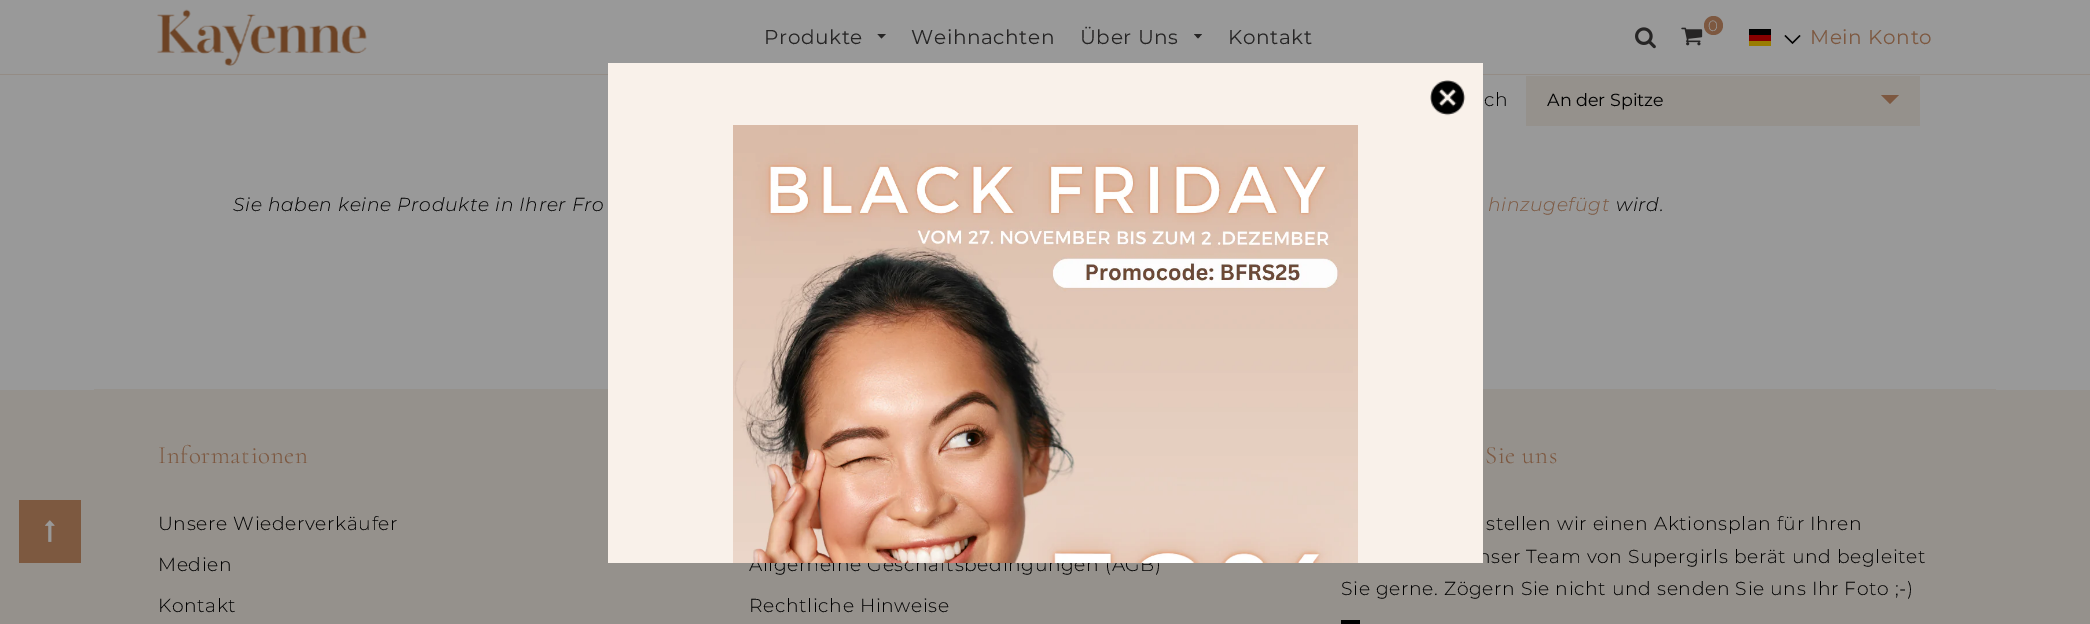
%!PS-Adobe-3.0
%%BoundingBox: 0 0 2090 624
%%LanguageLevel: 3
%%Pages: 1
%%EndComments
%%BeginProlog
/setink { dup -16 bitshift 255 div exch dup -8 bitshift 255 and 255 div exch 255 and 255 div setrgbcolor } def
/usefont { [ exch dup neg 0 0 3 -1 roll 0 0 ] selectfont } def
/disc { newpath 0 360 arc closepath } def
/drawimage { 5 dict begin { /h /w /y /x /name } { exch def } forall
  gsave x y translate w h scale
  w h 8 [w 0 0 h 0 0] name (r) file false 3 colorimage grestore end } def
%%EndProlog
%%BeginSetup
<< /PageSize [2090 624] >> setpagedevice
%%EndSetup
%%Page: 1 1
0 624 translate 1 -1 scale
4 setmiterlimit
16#999999 setink
0 0 2090 624 rectfill
16#948C85 setink
0 74 2090 1 rectfill
(img1.raw) 157 9 210 57 drawimage
/Montserrat-Regular 20 usefont
16#262525 setink
764 44 moveto 0.62 0 (Produkte) ashow
877.5 34 moveto 886 34 lineto 881.5 38.5 lineto closepath fill
911 44 moveto 0.62 0 (Weihnachten) ashow
1080 44 moveto 0.62 0 (Über Uns) ashow
1194 34 moveto 1202 34 lineto 1198 38.5 lineto closepath fill
1228 44 moveto 0.62 0 (Kontakt) ashow
(img2.raw) 1635 27 21 22 drawimage
(img3.raw) 1681 27 22 19 drawimage
16#7D5840 setink
1713.5 25.5 9.5 disc fill
/Montserrat-Light 15 usefont
16#999999 setink
1708 31 moveto 0.62 0 (0) ashow
[
    [1749 41 22 5 16#997C00]
    [1749 29 22 6 16#000000]
    [1749 35 22 6 16#850000]
] { aload pop setink rectfill } forall
16#000000 setink
1.2 setlinewidth
1785 35.5 moveto 1792.5 43 lineto 1800 35.5 lineto stroke
/Montserrat-Regular 20 usefont
16#7D5840 setink
1810 44 moveto 0.62 0 (Mein Konto) ashow
/Montserrat-Light 18.75 usefont
16#000000 setink
1484 106 moveto 0.62 0 (ch) ashow
16#95918C setink
1526 76 394 50 rectfill
/Montserrat-Regular 17.5 usefont
16#000000 setink
1547 106 moveto (An der Spitze) show
16#7D5840 setink
1881 95 moveto 1899 95 lineto 1890 104 lineto closepath fill
/Montserrat-LightItalic 18.75 usefont
16#000000 setink
233 211 moveto 0.62 0 (Sie haben keine Produkte in Ihrer Fro) ashow
16#7D5840 setink
1488 211 moveto 0.62 0 (hinzugefügt) ashow
16#000000 setink
1616 211 moveto 0.62 0 (wird.) ashow
16#95918C setink
94 389 1902 1 rectfill
0 390 2090 234 rectfill
/Cormorant-Light 25 usefont
16#7D5840 setink
158 463 moveto 0.62 0 (Informationen) ashow
/Montserrat-Light 18.75 usefont
16#000000 setink
158 530 moveto 0.62 0 (Unsere Wiederverkäufer) ashow
158 571 moveto 0.62 0 (Medien) ashow
158 612 moveto 0.62 0 (Kontakt) ashow
749 571 moveto 0.62 0 (Allgemeine Geschäftsbedingungen \(AGB\)) ashow
749 612 moveto 0.62 0 (Rechtliche Hinweise) ashow
/Cormorant-Light 25 usefont
16#7D5840 setink
1485 463 moveto 0.62 0 (Sie uns) ashow
/Montserrat-Light 18.75 usefont
16#000000 setink
1486 530 moveto 0.62 0 (stellen wir einen Aktionsplan für Ihren) ashow
1478 563 moveto 0.62 0 (nser Team von Supergirls berät und begleitet) ashow
1341 595 moveto 0.62 0 (Sie gerne. Zögern Sie nicht und senden Sie uns Ihr Foto ;-\)) ashow
1341 620 19 4 rectfill
16#7D5940 setink
19 500 62 63 rectfill
(img4.raw) 45 520 10 22 drawimage
16#F9F1EA setink
608 63 875 500 rectfill
(img5.raw) 1430 80 36 36 drawimage
(img6.raw) 733 125 625 438 drawimage
showpage
%%EOF
